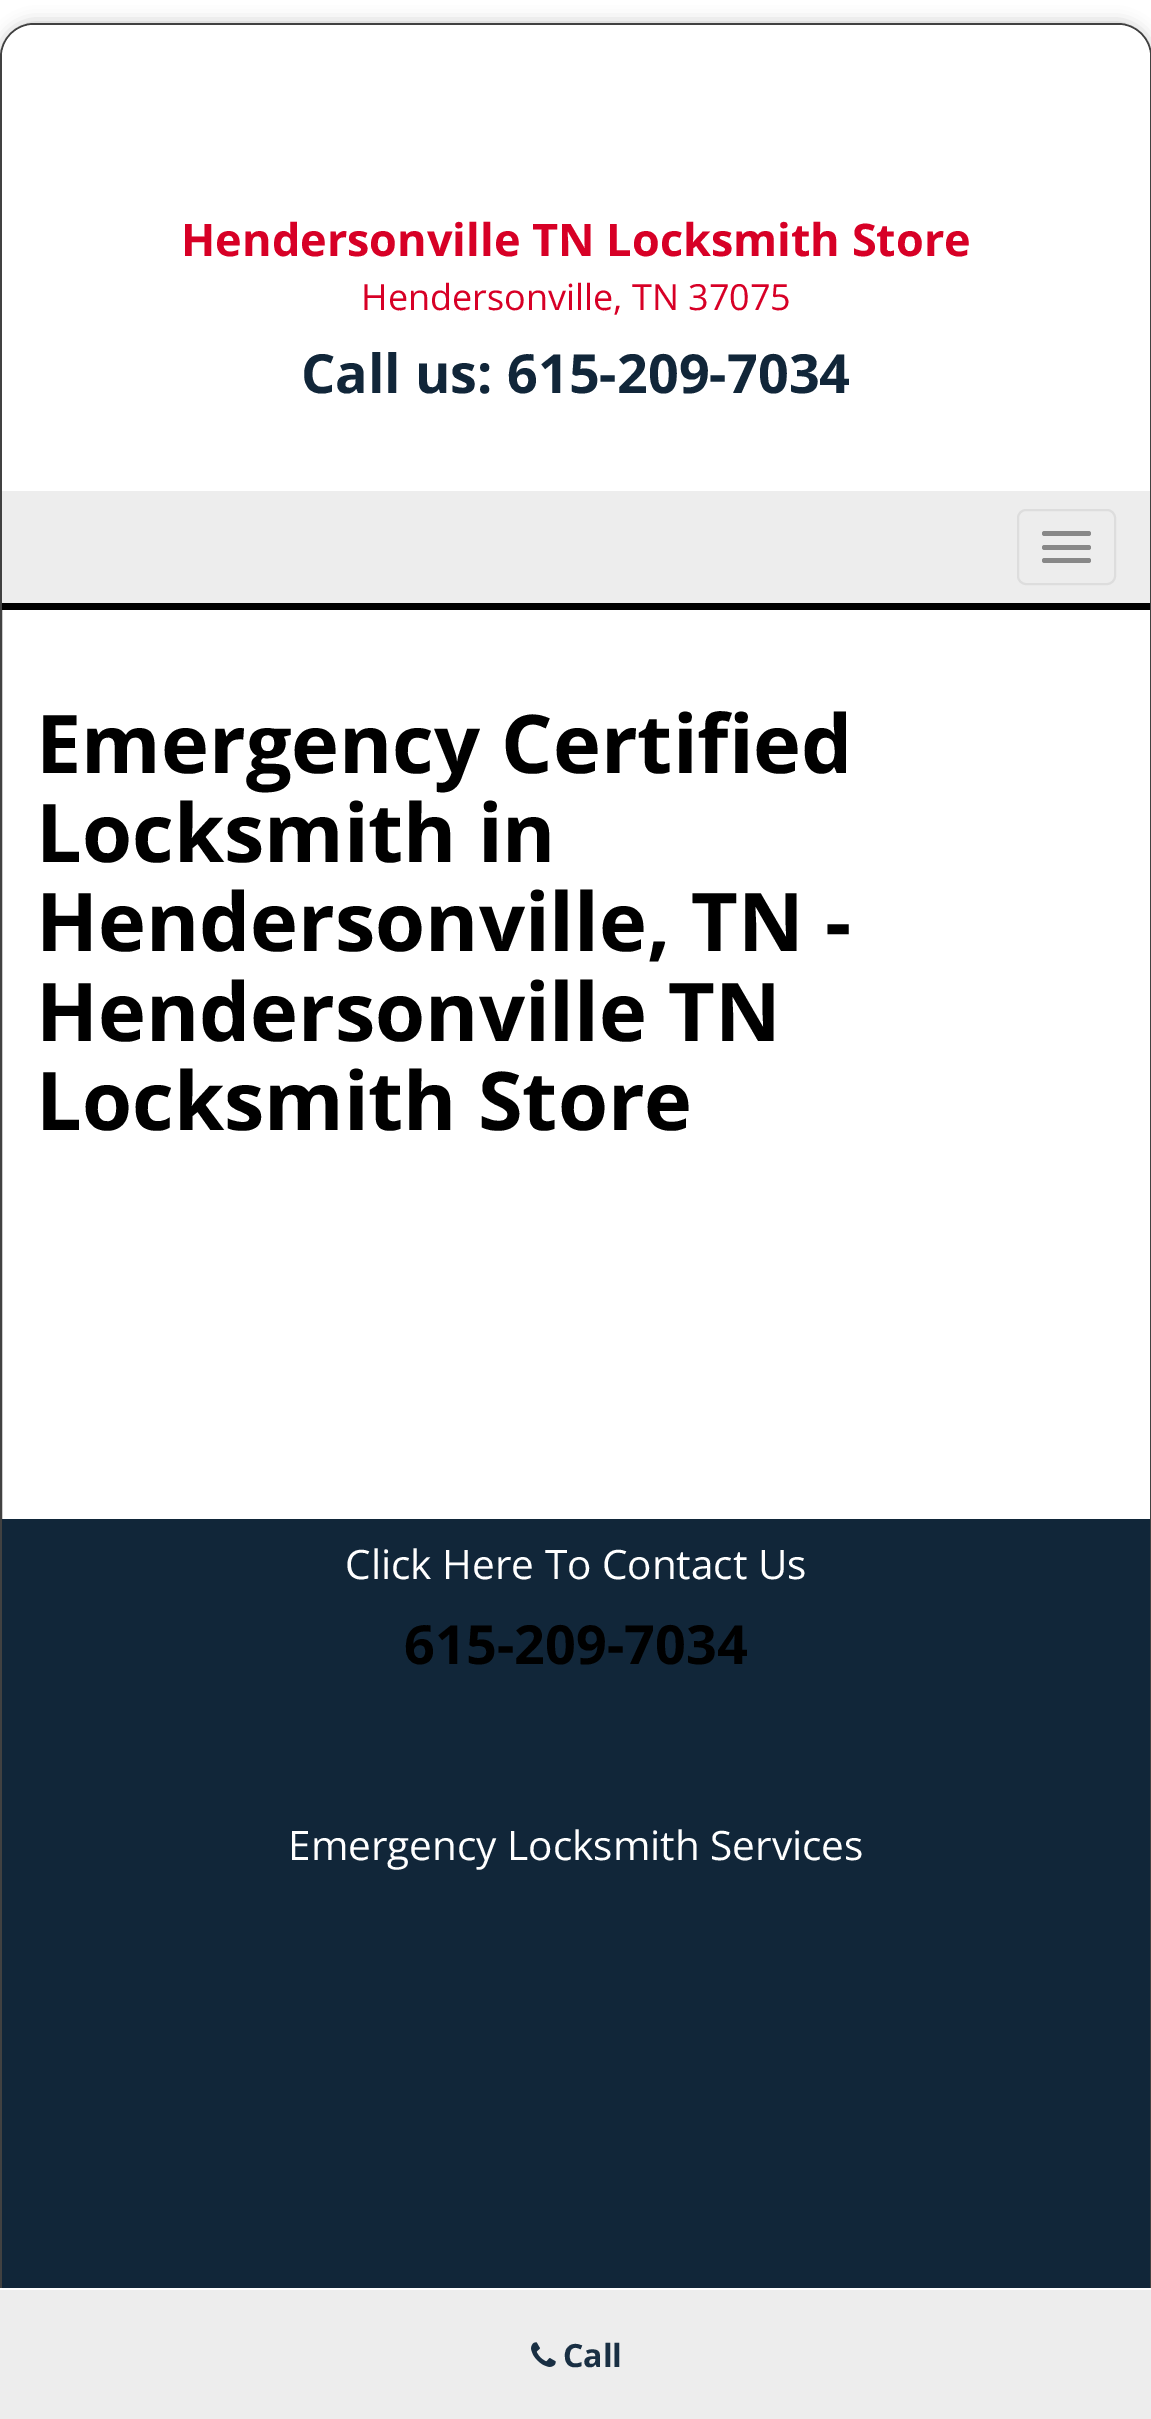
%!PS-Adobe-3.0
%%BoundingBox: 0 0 1151 2419
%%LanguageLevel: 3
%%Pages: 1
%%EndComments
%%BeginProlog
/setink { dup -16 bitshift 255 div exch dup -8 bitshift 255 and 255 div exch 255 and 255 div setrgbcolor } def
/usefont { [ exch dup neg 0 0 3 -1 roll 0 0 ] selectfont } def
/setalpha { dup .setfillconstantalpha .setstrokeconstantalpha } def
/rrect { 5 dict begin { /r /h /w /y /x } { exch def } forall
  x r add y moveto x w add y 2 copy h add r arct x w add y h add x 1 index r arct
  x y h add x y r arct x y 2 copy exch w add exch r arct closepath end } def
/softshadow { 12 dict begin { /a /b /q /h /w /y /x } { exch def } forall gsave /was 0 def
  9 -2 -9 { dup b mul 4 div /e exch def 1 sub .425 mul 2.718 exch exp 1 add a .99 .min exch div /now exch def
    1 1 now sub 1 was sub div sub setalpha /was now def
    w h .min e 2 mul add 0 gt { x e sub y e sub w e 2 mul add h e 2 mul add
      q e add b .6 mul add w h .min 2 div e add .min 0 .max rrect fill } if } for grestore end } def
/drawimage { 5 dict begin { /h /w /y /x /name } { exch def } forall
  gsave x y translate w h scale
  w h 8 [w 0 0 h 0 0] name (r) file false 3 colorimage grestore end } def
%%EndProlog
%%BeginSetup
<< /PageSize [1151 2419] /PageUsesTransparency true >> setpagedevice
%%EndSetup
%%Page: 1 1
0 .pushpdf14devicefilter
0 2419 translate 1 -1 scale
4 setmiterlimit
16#FFFFFF setink
0 0 1151 2419 rectfill
gsave
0 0 moveto 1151 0 lineto 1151 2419 lineto 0 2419 lineto closepath 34 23 moveto 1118 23 lineto 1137 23 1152 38 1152 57 curveto 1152 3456 lineto 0 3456 lineto 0 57 lineto 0 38 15 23 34 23 curveto closepath eoclip newpath
16#BFBFBF setink
0 23 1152 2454 34 8 1 softshadow
grestore
16#414141 setink
2 setlinewidth
34 24 moveto 1118 24 lineto 1136 24 1151 39 1151 57 curveto 1151 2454 lineto 1 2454 lineto 1 57 lineto 1 39 16 24 34 24 curveto closepath stroke
16#FFFFFF setink
34 25 moveto 1118 25 lineto 1135.5 25 1150 39.5 1150 57 curveto 1150 491 lineto 2 491 lineto 2 57 lineto 2 39.5 16.5 25 34 25 curveto closepath fill
/OpenSans-Bold 45 usefont
16#D70026 setink
181 256 moveto (Hendersonville TN Locksmith Store) show
/OpenSans-Regular 36 usefont
361 310 moveto (Hendersonville, TN 37075) show
/OpenSans-Bold 54 usefont
16#112639 setink
301 393 moveto (Call us: 615-209-7034) show
16#000000 setink
2 603 1148 7 rectfill
16#EDEDED setink
2 491 1148 112 rectfill
16#DDDDDD setink
1018 510 97 74 8 rrect stroke
16#888888 setink
1042 531 49 5 2.5 rrect fill
1042 545 49 5 2.5 rrect fill
1042 558 49 5 2.5 rrect fill
/OpenSans-Bold 81 usefont
16#000000 setink
[
    [(Emergency Certified) 36 773]
    [(Locksmith in) 36 862]
    [(Hendersonville, TN -) 36 951]
    [(Hendersonville TN) 36 1041]
    [(Locksmith Store) 36 1130]
] { aload pop moveto show } forall
16#112639 setink
2 1519 1148 769 rectfill
/OpenSans-Regular 40.5 usefont
16#FFFFFF setink
345 1579 moveto (Click Here To Contact Us) show
/OpenSans-Bold 54 usefont
16#000000 setink
404 1664 moveto (615-209-7034) show
/OpenSans-Regular 40.5 usefont
16#FFFFFF setink
288 1860 moveto (Emergency Locksmith Services) show
16#EDEDED setink
0 2290 1151 129 rectfill
16#FFFFFF setink
0 2288 1151 2 rectfill
(img1.raw) 531 2342 25 25 drawimage
/OpenSans-Bold 32 usefont
16#192F43 setink
563 2367 moveto (Call) show
.poppdf14devicefilter showpage
%%EOF
